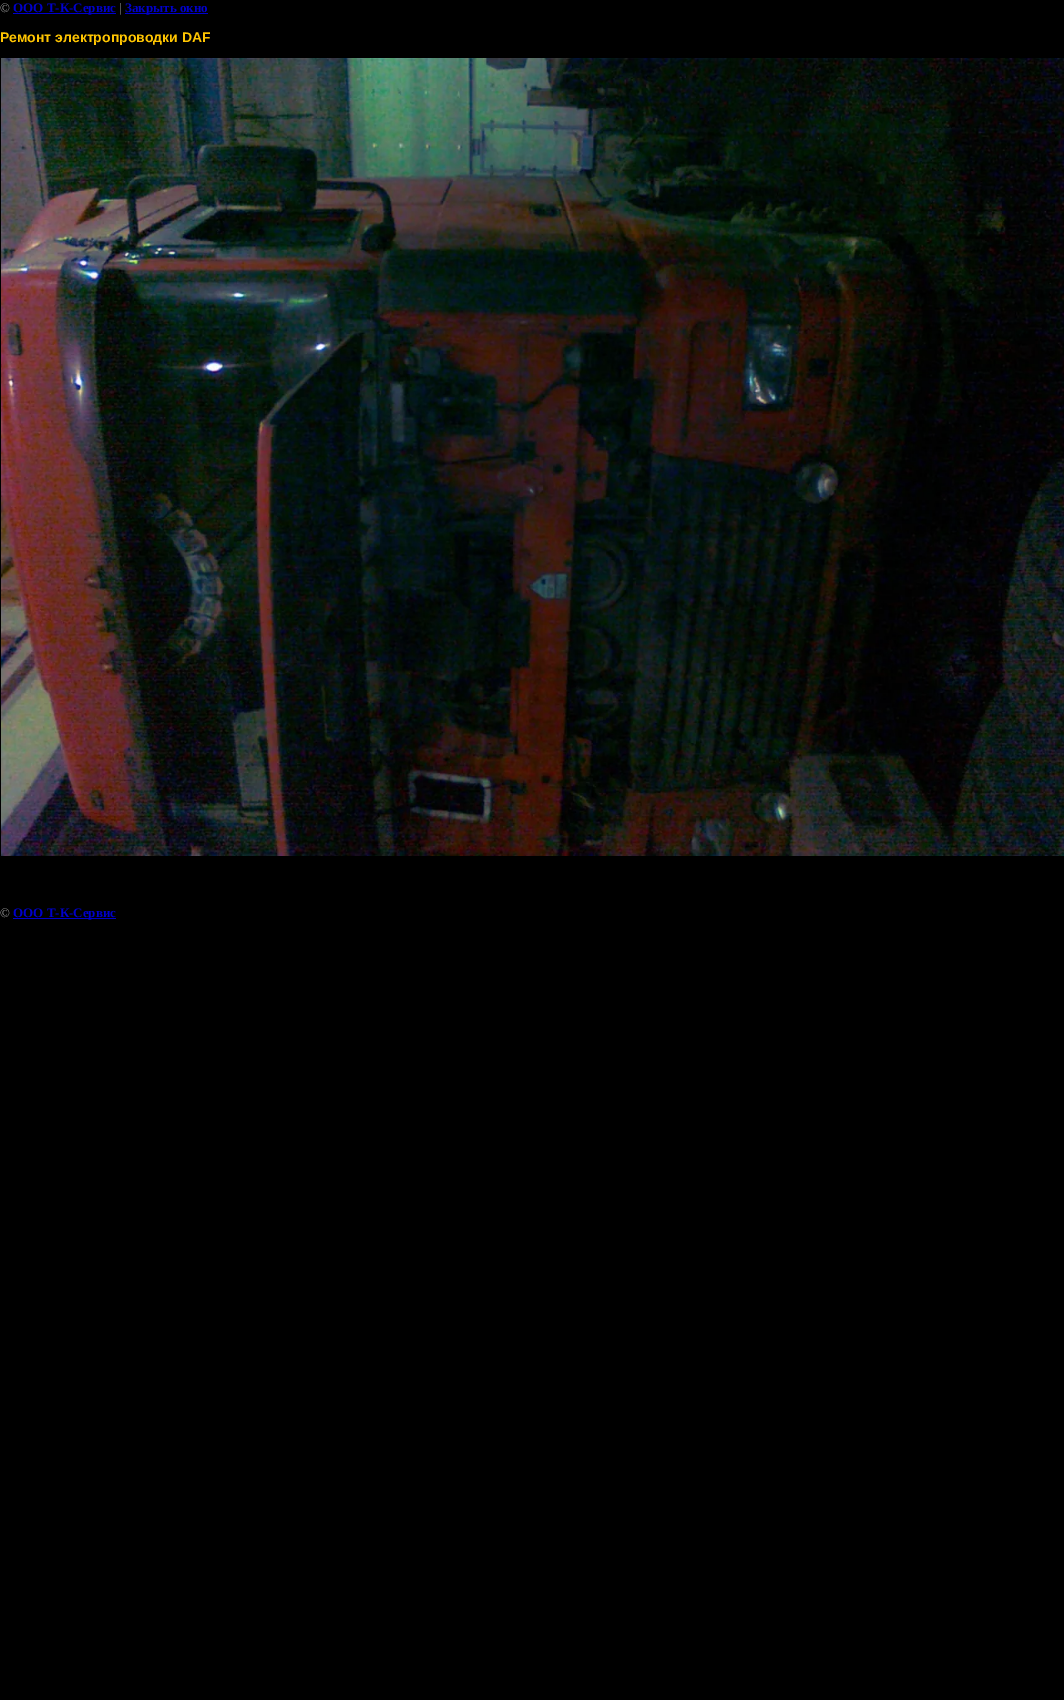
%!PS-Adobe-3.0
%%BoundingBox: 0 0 1064 1700
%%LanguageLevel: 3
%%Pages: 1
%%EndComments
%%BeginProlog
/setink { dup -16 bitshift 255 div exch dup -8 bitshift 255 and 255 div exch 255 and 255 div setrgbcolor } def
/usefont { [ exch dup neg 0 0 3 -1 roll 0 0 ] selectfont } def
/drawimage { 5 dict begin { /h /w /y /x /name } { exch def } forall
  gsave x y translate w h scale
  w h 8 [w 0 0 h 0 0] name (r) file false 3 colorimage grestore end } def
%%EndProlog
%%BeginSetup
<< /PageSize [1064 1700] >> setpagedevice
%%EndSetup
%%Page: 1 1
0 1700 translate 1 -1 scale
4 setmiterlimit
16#000000 setink
0 0 1064 1700 rectfill
/LiberationSerif-Regular 13 usefont
16#9A9A9A setink
0 12 moveto (©) show
16#0000CC setink
13 13 103 1 rectfill
/LiberationSerif-Bold 13 usefont
13 12 moveto (ООО Т-К-Сервис) show
/LiberationSerif-Regular 13 usefont
16#9A9A9A setink
119 12 moveto (|) show
16#0000CC setink
125 13 83 1 rectfill
/LiberationSerif-Bold 13 usefont
125 12 moveto (Закрыть окно) show
/LiberationSans-Bold 14 usefont
16#FFC501 setink
0 42 moveto (Ремонт электропроводки DAF) show
(img1.raw) 1 58 1063 798 drawimage
/LiberationSerif-Regular 13 usefont
16#9A9A9A setink
0 917 moveto (©) show
16#0000CC setink
13 918 103 1 rectfill
/LiberationSerif-Bold 13 usefont
13 917 moveto (ООО Т-К-Сервис) show
showpage
%%EOF
